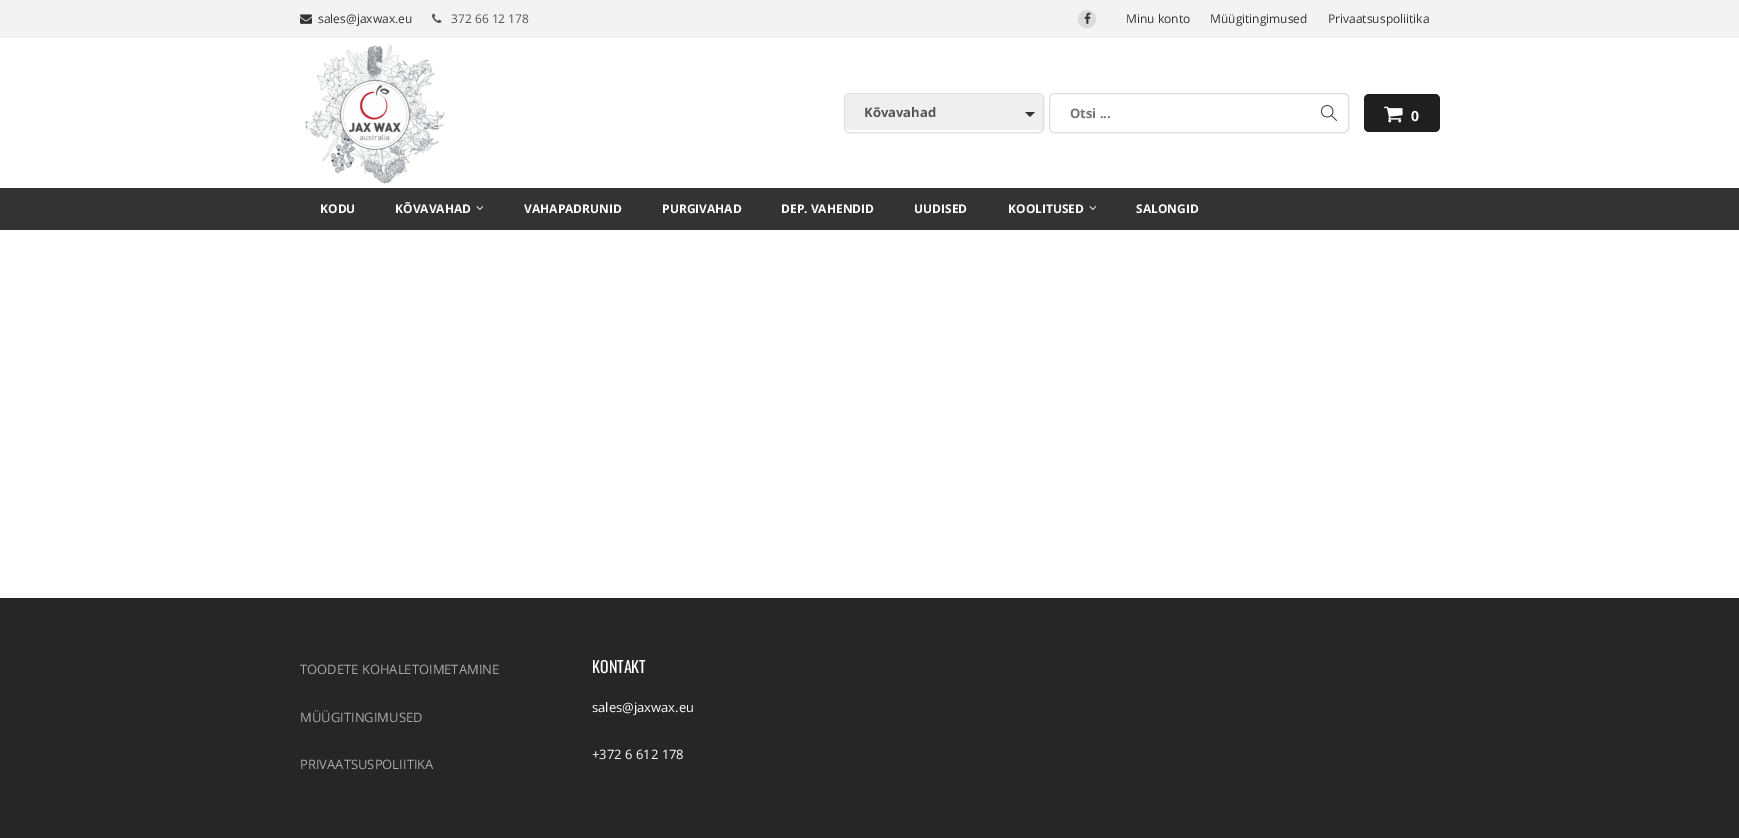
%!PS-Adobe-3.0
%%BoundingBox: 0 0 1739 838
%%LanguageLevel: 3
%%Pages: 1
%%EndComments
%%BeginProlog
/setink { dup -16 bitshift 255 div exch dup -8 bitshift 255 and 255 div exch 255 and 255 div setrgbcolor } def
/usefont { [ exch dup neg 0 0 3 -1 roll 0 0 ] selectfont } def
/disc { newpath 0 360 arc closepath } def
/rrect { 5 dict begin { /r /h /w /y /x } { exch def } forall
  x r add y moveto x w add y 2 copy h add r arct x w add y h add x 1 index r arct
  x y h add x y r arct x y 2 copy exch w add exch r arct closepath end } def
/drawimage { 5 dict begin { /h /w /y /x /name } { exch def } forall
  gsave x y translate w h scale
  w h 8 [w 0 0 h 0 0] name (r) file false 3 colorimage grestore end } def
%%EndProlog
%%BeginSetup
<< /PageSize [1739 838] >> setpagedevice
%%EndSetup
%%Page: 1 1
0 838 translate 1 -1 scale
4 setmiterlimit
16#FFFFFF setink
0 0 1739 838 rectfill
16#F3F3F3 setink
0 0 1739 38 rectfill
(img1.raw) 300 14 12 10 drawimage
/OpenSans-Regular 12 usefont
16#333333 setink
318 23 moveto (sales@jaxwax.eu) show
(img2.raw) 432 13 10 10 drawimage
16#555555 setink
451 23 moveto (372 66 12 178) show
16#DBDBDB setink
1087 19 9 disc fill
(img3.raw) 1084 12 7 12 drawimage
16#333333 setink
[
    [(Minu konto) 1126 23]
    [(Müügitingimused) 1210 23]
    [(Privaatsuspoliitika) 1328 23]
] { aload pop moveto show } forall
(img4.raw) 305 45 140 139 drawimage
16#DDDDDD setink
844.5 93.5 199 39 4.5 rrect stroke
gsave
845 94 198 38 4 rrect clip newpath
16#EFEFEF setink
850 94 moveto 1039 94 lineto 1041 94 1043 96 1043 98 curveto 1043 130 lineto 850 130 lineto 847 130 845 128 845 125 curveto 845 99 lineto 845 96 847 94 850 94 curveto closepath fill
grestore
/OpenSans-Bold 13 usefont
16#555555 setink
864 117 moveto (Kõvavahad) show
16#333333 setink
1025 112 moveto 1035 112 lineto 1030 117 lineto closepath fill
16#DDDDDD setink
1049.5 93.5 299 39 4.5 rrect stroke
16#757575 setink
1070 118 moveto (Otsi ...) show
(img5.raw) 1321 105 16 16 drawimage
16#1F1F1F setink
1364 94 76 38 5 rrect fill
(img6.raw) 1384 106 19 17 drawimage
/OpenSans-Bold 14 usefont
16#FFFFFF setink
1411 121 moveto (0) show
16#333333 setink
0 188 1739 42 rectfill
/OpenSans-Bold 12 usefont
16#FFFFFF setink
320 213 moveto (KODU) show
395 213 moveto (KÕVAVAHAD) show
(img7.raw) 476 206 8 4 drawimage
[
    [(VAHAPADRUNID) 524 213]
    [(PURGIVAHAD) 662 213]
    [(DEP. VAHENDID) 781 213]
    [(UUDISED) 914 213]
    [(KOOLITUSED) 1008 213]
] { aload pop moveto show } forall
(img7.raw) 1089 206 8 4 drawimage
1136 213 moveto (SALONGID) show
16#262626 setink
0 598 1739 240 rectfill
/OpenSans-Regular 13 usefont
16#AAAAAA setink
[
    [(TOODETE KOHALETOIMETAMINE) 300 674]
    [(MÜÜGITINGIMUSED) 300 722]
    [(PRIVAATSUSPOLIITIKA) 300 769]
] { aload pop moveto show } forall
/Oswald-Regular 16 usefont
16#FFFFFF setink
592 673 moveto (KONTAKT) show
/OpenSans-Regular 13 usefont
592 712 moveto (sales@jaxwax.eu) show
592 759 moveto (+372 6 612 178) show
showpage
%%EOF
